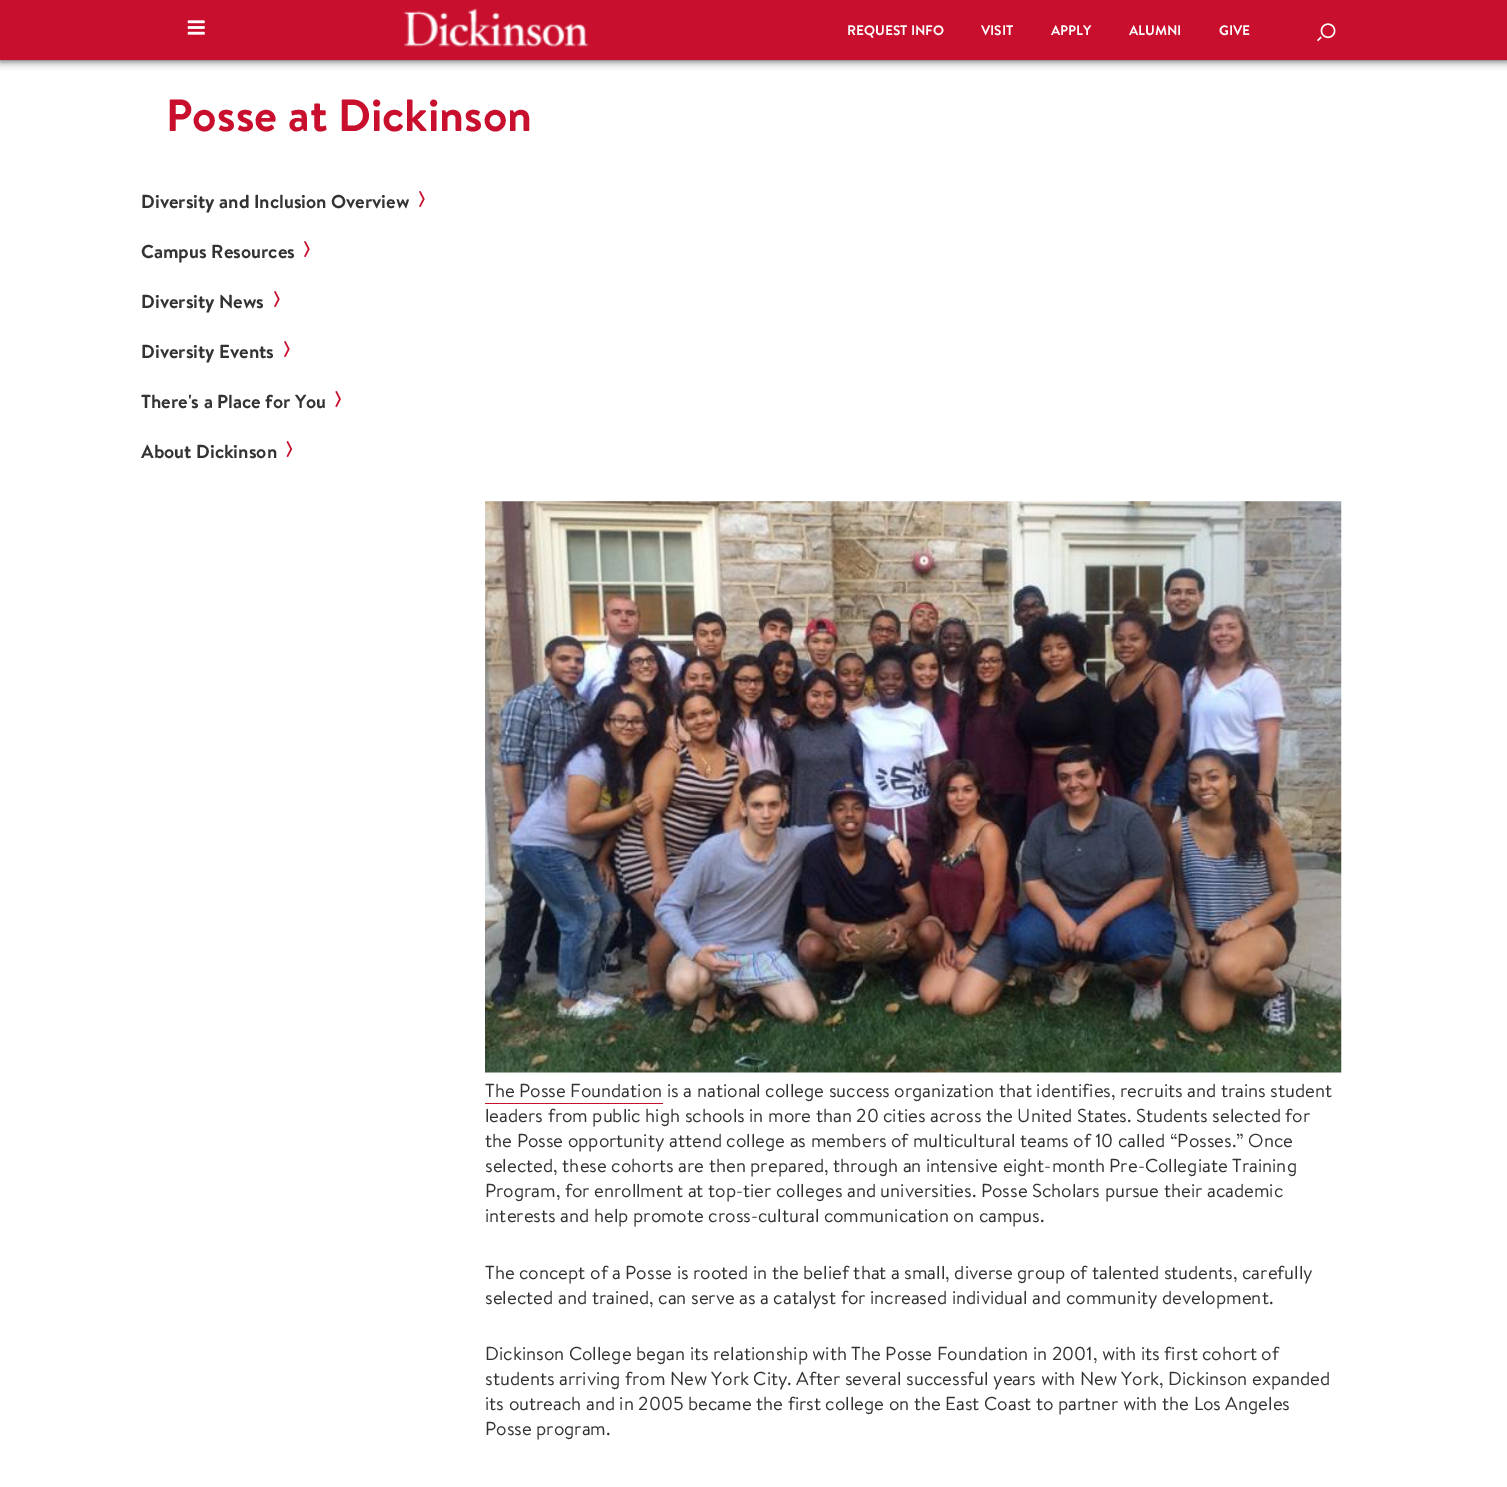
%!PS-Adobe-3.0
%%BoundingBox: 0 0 1507 1487
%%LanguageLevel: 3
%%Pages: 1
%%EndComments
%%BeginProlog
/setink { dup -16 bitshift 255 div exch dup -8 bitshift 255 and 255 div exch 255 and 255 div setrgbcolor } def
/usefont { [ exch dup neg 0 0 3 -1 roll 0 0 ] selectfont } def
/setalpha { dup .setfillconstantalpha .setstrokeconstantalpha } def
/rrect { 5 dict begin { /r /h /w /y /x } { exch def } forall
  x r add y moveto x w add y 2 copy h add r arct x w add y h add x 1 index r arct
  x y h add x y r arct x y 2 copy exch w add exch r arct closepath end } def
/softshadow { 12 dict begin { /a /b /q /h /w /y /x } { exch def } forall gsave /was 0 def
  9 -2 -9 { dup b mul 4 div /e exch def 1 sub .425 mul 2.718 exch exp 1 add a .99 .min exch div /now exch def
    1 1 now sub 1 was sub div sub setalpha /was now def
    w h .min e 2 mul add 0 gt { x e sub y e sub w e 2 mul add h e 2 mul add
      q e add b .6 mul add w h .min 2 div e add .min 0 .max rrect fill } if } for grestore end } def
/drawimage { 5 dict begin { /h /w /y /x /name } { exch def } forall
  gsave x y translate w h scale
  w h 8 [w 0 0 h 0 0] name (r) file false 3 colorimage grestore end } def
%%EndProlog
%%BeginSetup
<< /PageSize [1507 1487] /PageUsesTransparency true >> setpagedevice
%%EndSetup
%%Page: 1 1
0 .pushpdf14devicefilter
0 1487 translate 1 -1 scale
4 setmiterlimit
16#FFFFFF setink
0 0 1507 1487 rectfill
16#000000 setink
0 0 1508 60 0 4.5 0.8 softshadow
16#C8102E setink
0 0 1507 60 rectfill
(img1.raw) 187 20 18 15 drawimage
(img2.raw) 403 8 186 39 drawimage
/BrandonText-Regular 13.75 usefont
16#FFFFFF setink
[
    [(REQUEST INFO) 847 35]
    [(VISIT) 981 35]
    [(APPLY) 1051 35]
    [(ALUMNI) 1129 35]
    [(GIVE) 1219 35]
] { aload pop moveto show } forall
(img3.raw) 1317 23 19 19 drawimage
/BrandonText-Regular 45 usefont
16#C8102E setink
166 131 moveto (Posse at Dickinson) show
/BrandonText-Regular 18.75 usefont
16#333333 setink
141 208 moveto (Diversity and Inclusion Overview) show
(img4.raw) 419 191 6 16 drawimage
141 258 moveto (Campus Resources) show
(img4.raw) 304 241 6 16 drawimage
141 308 moveto (Diversity News) show
(img4.raw) 274 291 6 16 drawimage
141 358 moveto (Diversity Events) show
(img4.raw) 284 341 6 16 drawimage
141 408 moveto (There's a Place for You) show
(img5.raw) 335 391 6 17 drawimage
141 458 moveto (About Dickinson) show
(img6.raw) 286 441 7 17 drawimage
(img7.raw) 485 501 857 572 drawimage
/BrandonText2-Regular 18.75 usefont
485 1097 moveto (The Posse Foundation) show
16#C8102E setink
485 1103 178 1 rectfill
16#333333 setink
[
    [(is a national college success organization that identifies, recruits and trains student) 667 1097]
    [(leaders from public high schools in more than 20 cities across the United States. Students selected for) 485 1122]
    [(the Posse opportunity attend college as members of multicultural teams of 10 called “Posses.” Once) 485 1147]
    [(selected, these cohorts are then prepared, through an intensive eight-month Pre-Collegiate Training) 485 1172]
    [(Program, for enrollment at top-tier colleges and universities. Posse Scholars pursue their academic) 485 1197]
    [(interests and help promote cross-cultural communication on campus.) 485 1222]
    [(The concept of a Posse is rooted in the belief that a small, diverse group of talented students, carefully) 485 1279]
    [(selected and trained, can serve as a catalyst for increased individual and community development.) 485 1304]
    [(Dickinson College began its relationship with The Posse Foundation in 2001, with its first cohort of) 485 1360]
    [(students arriving from New York City. After several successful years with New York, Dickinson expanded) 485 1385]
    [(its outreach and in 2005 became the first college on the East Coast to partner with the Los Angeles) 485 1410]
    [(Posse program.) 485 1435]
] { aload pop moveto show } forall
.poppdf14devicefilter showpage
%%EOF
